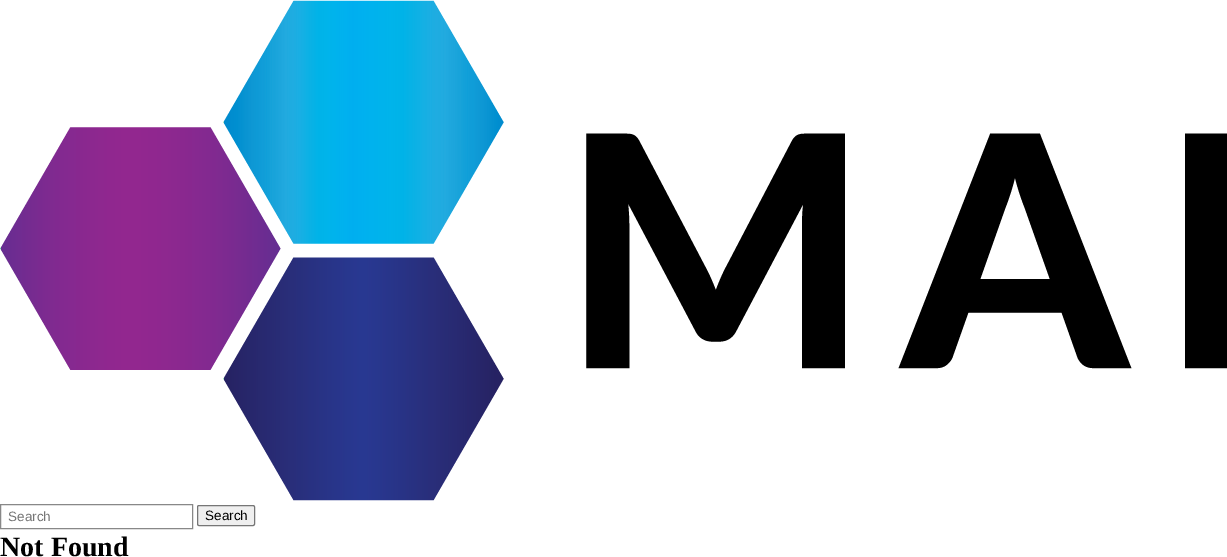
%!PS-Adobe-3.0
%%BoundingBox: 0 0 1227 557
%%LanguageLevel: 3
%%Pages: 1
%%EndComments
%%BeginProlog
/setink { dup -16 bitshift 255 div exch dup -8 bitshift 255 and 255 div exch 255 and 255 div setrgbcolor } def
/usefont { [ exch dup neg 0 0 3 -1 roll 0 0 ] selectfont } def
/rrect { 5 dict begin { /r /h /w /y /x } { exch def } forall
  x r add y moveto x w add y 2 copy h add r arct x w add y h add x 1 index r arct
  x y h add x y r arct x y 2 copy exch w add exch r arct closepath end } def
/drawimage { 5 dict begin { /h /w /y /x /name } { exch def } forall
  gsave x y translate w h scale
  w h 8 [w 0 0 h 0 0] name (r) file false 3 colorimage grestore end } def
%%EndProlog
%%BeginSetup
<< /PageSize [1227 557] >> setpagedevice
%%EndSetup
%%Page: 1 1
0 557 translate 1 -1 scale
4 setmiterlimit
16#FFFFFF setink
0 0 1227 557 rectfill
(img1.raw) 0 0 1227 501 drawimage
16#888888 setink
0.5 504.5 192 24 rectstroke
/LiberationSans-Regular 13.5 usefont
16#757575 setink
8 521 moveto (Search) show
16#EFEFEF setink
197.5 505.5 57 20 1.5 rrect gsave fill grestore
16#767676 setink
stroke
16#000000 setink
205 520 moveto (Search) show
/LiberationSerif-Bold 28 usefont
0 556 moveto (Not Found) show
showpage
%%EOF
